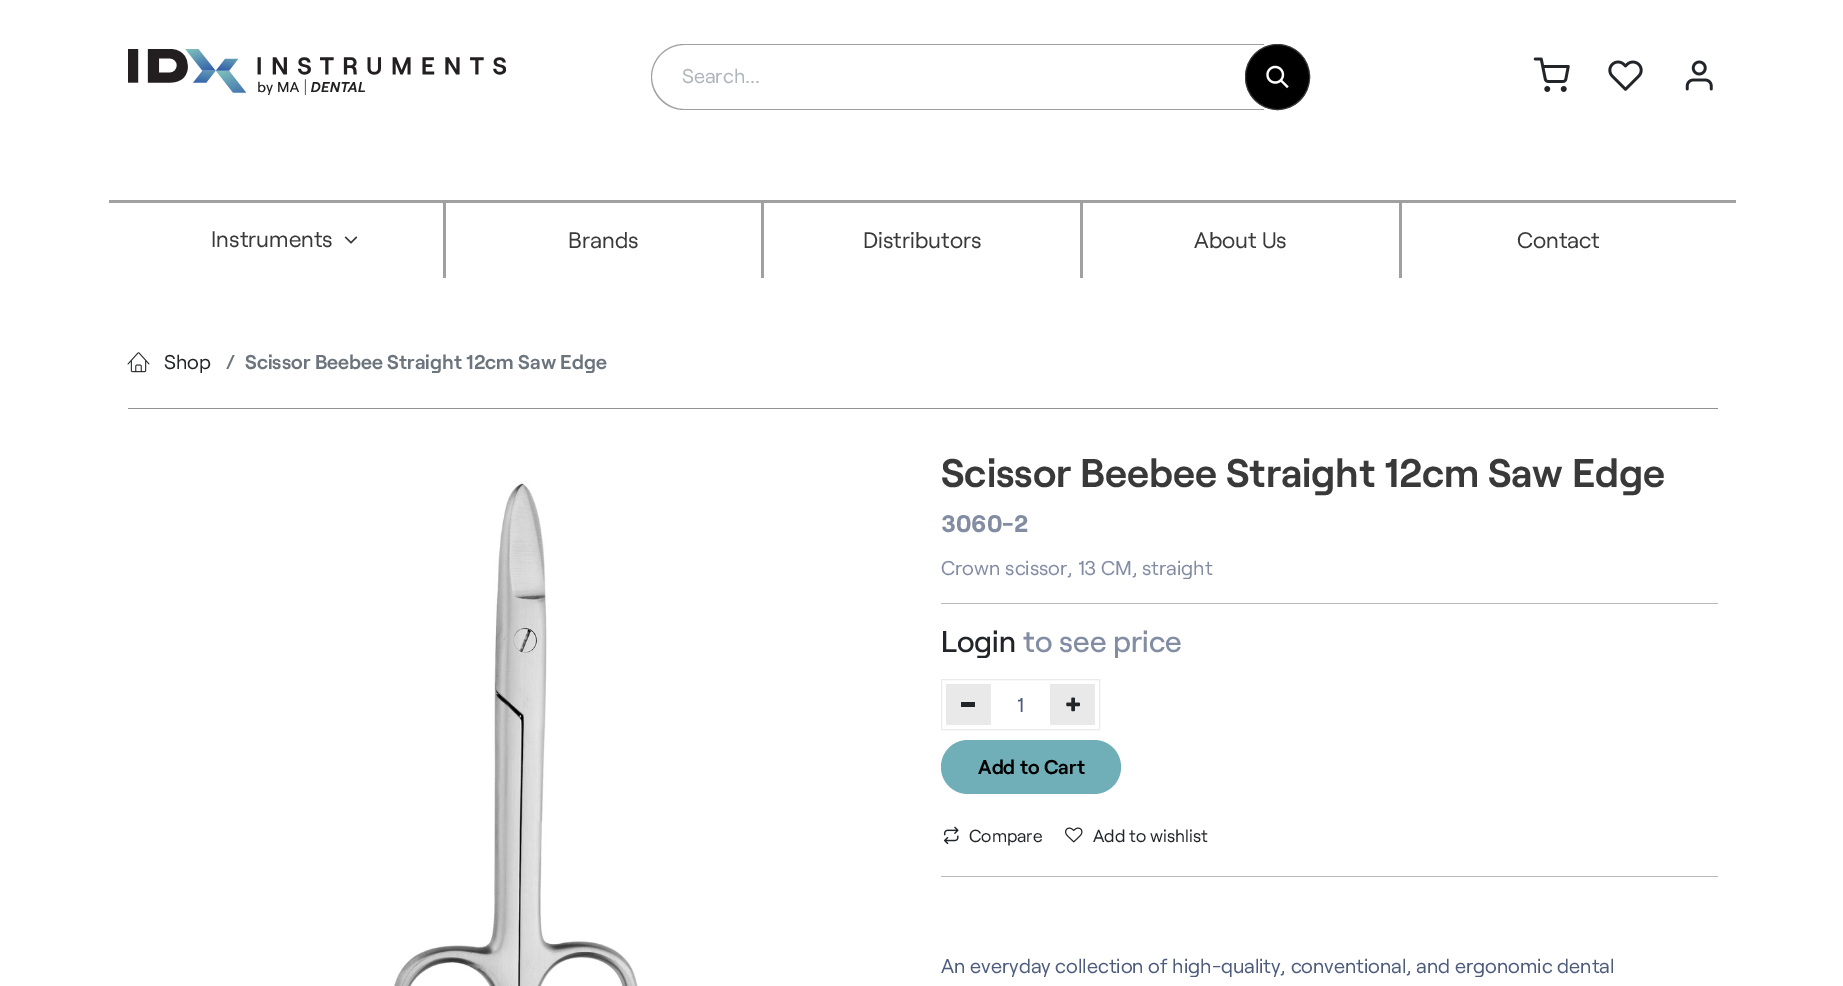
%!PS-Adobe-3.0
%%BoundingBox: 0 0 1843 986
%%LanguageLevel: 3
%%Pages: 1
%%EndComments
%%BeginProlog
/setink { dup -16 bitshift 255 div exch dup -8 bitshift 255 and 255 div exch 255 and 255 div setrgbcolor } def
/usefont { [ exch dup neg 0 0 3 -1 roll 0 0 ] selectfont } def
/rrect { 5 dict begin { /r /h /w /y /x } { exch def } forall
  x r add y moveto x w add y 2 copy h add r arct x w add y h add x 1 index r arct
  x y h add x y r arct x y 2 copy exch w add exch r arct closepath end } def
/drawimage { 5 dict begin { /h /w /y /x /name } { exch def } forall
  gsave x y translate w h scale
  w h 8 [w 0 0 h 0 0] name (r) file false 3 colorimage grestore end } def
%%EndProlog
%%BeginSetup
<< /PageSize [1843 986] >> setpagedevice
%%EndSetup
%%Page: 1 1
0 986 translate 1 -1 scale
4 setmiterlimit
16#FFFFFF setink
0 0 1843 986 rectfill
(img1.raw) 128 49 378 46 drawimage
16#A0A0A0 setink
684 44 moveto 1264 44 lineto 1264 110 lineto 684 110 lineto 666 110 651 95 651 77 curveto 651 59 666 44 684 44 curveto closepath 684 45 moveto 1264 45 lineto 1264 109 lineto 684 109 lineto 667 109 652 94 652 77 curveto 652 59 667 45 684 45 curveto closepath eofill
/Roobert-Regular 20 usefont
16#ADB5BD setink
682 83 moveto (Search...) show
16#000000 setink
1245.5 44.5 64 65 32 rrect gsave fill grestore
16#393939 setink
stroke
(img2.raw) 1266 65 23 24 drawimage
(img3.raw) 1533 57 37 35 drawimage
(img4.raw) 1608 60 35 31 drawimage
(img5.raw) 1685 60 28 31 drawimage
16#A0A0A0 setink
109 200 1627 3 rectfill
443 203 3 75 rectfill
/Roobert-Regular 22.5 usefont
16#393939 setink
211 247 moveto (Instruments) show
(img6.raw) 344 236 14 8 drawimage
16#A0A0A0 setink
761 203 3 75 rectfill
16#393939 setink
568 248 moveto (Brands) show
16#A0A0A0 setink
1080 203 3 75 rectfill
16#393939 setink
863 248 moveto (Distributors) show
16#A0A0A0 setink
1399 203 3 75 rectfill
16#393939 setink
1194 248 moveto (About Us) show
1517 248 moveto (Contact) show
(img7.raw) 127 352 23 21 drawimage
/Roobert-Regular 20 usefont
16#212529 setink
164 369 moveto (Shop) show
/Roobert-SemiBold 20 usefont
16#6C757D setink
226 369 moveto (/) show
245 369 moveto (Scissor Beebee Straight 12cm Saw Edge) show
16#919191 setink
128 408 1590 1 rectfill
(img8.raw) 394 483 244 503 drawimage
/Roobert-SemiBold 40 usefont
16#393939 setink
941 487 moveto (Scissor Beebee Straight 12cm Saw Edge) show
/Roobert-Bold 24 usefont
16#828CA3 setink
941 532 moveto (3060-2) show
/Roobert-Regular 20 usefont
941 575 moveto (Crown scissor, 13 CM, straight) show
16#BABABA setink
941 603 777 1 rectfill
/Roobert-Medium 30 usefont
16#212529 setink
941 652 moveto (Login) show
16#828CA3 setink
1023 652 moveto (to see price) show
16#E9ECEF setink
941.5 679.5 158 50 rectstroke
16#E9E9EA setink
946 684 45 41 rectfill
16#212529 setink
961 702 14 5 rectfill
/Roobert-Regular 20 usefont
16#4D5B7C setink
1017 712 moveto (1) show
16#E9E9EA setink
1050 684 45 41 rectfill
(img9.raw) 1066 697 14 15 drawimage
16#70AEB8 setink
941 740 180 54 27 rrect fill
/Roobert-SemiBold 20 usefont
16#000000 setink
978 774 moveto (Add to Cart) show
(img10.raw) 943 826 16 19 drawimage
/Roobert-Regular 17.5 usefont
16#212529 setink
969 842 moveto (Compare) show
(img11.raw) 1065 827 18 16 drawimage
1093 842 moveto (Add to wishlist) show
16#BABABA setink
941 876 777 1 rectfill
/Roobert-Regular 20 usefont
16#4D5B7C setink
941 973 moveto (An everyday collection of high-quality, conventional, and ergonomic dental) show
showpage
%%EOF
